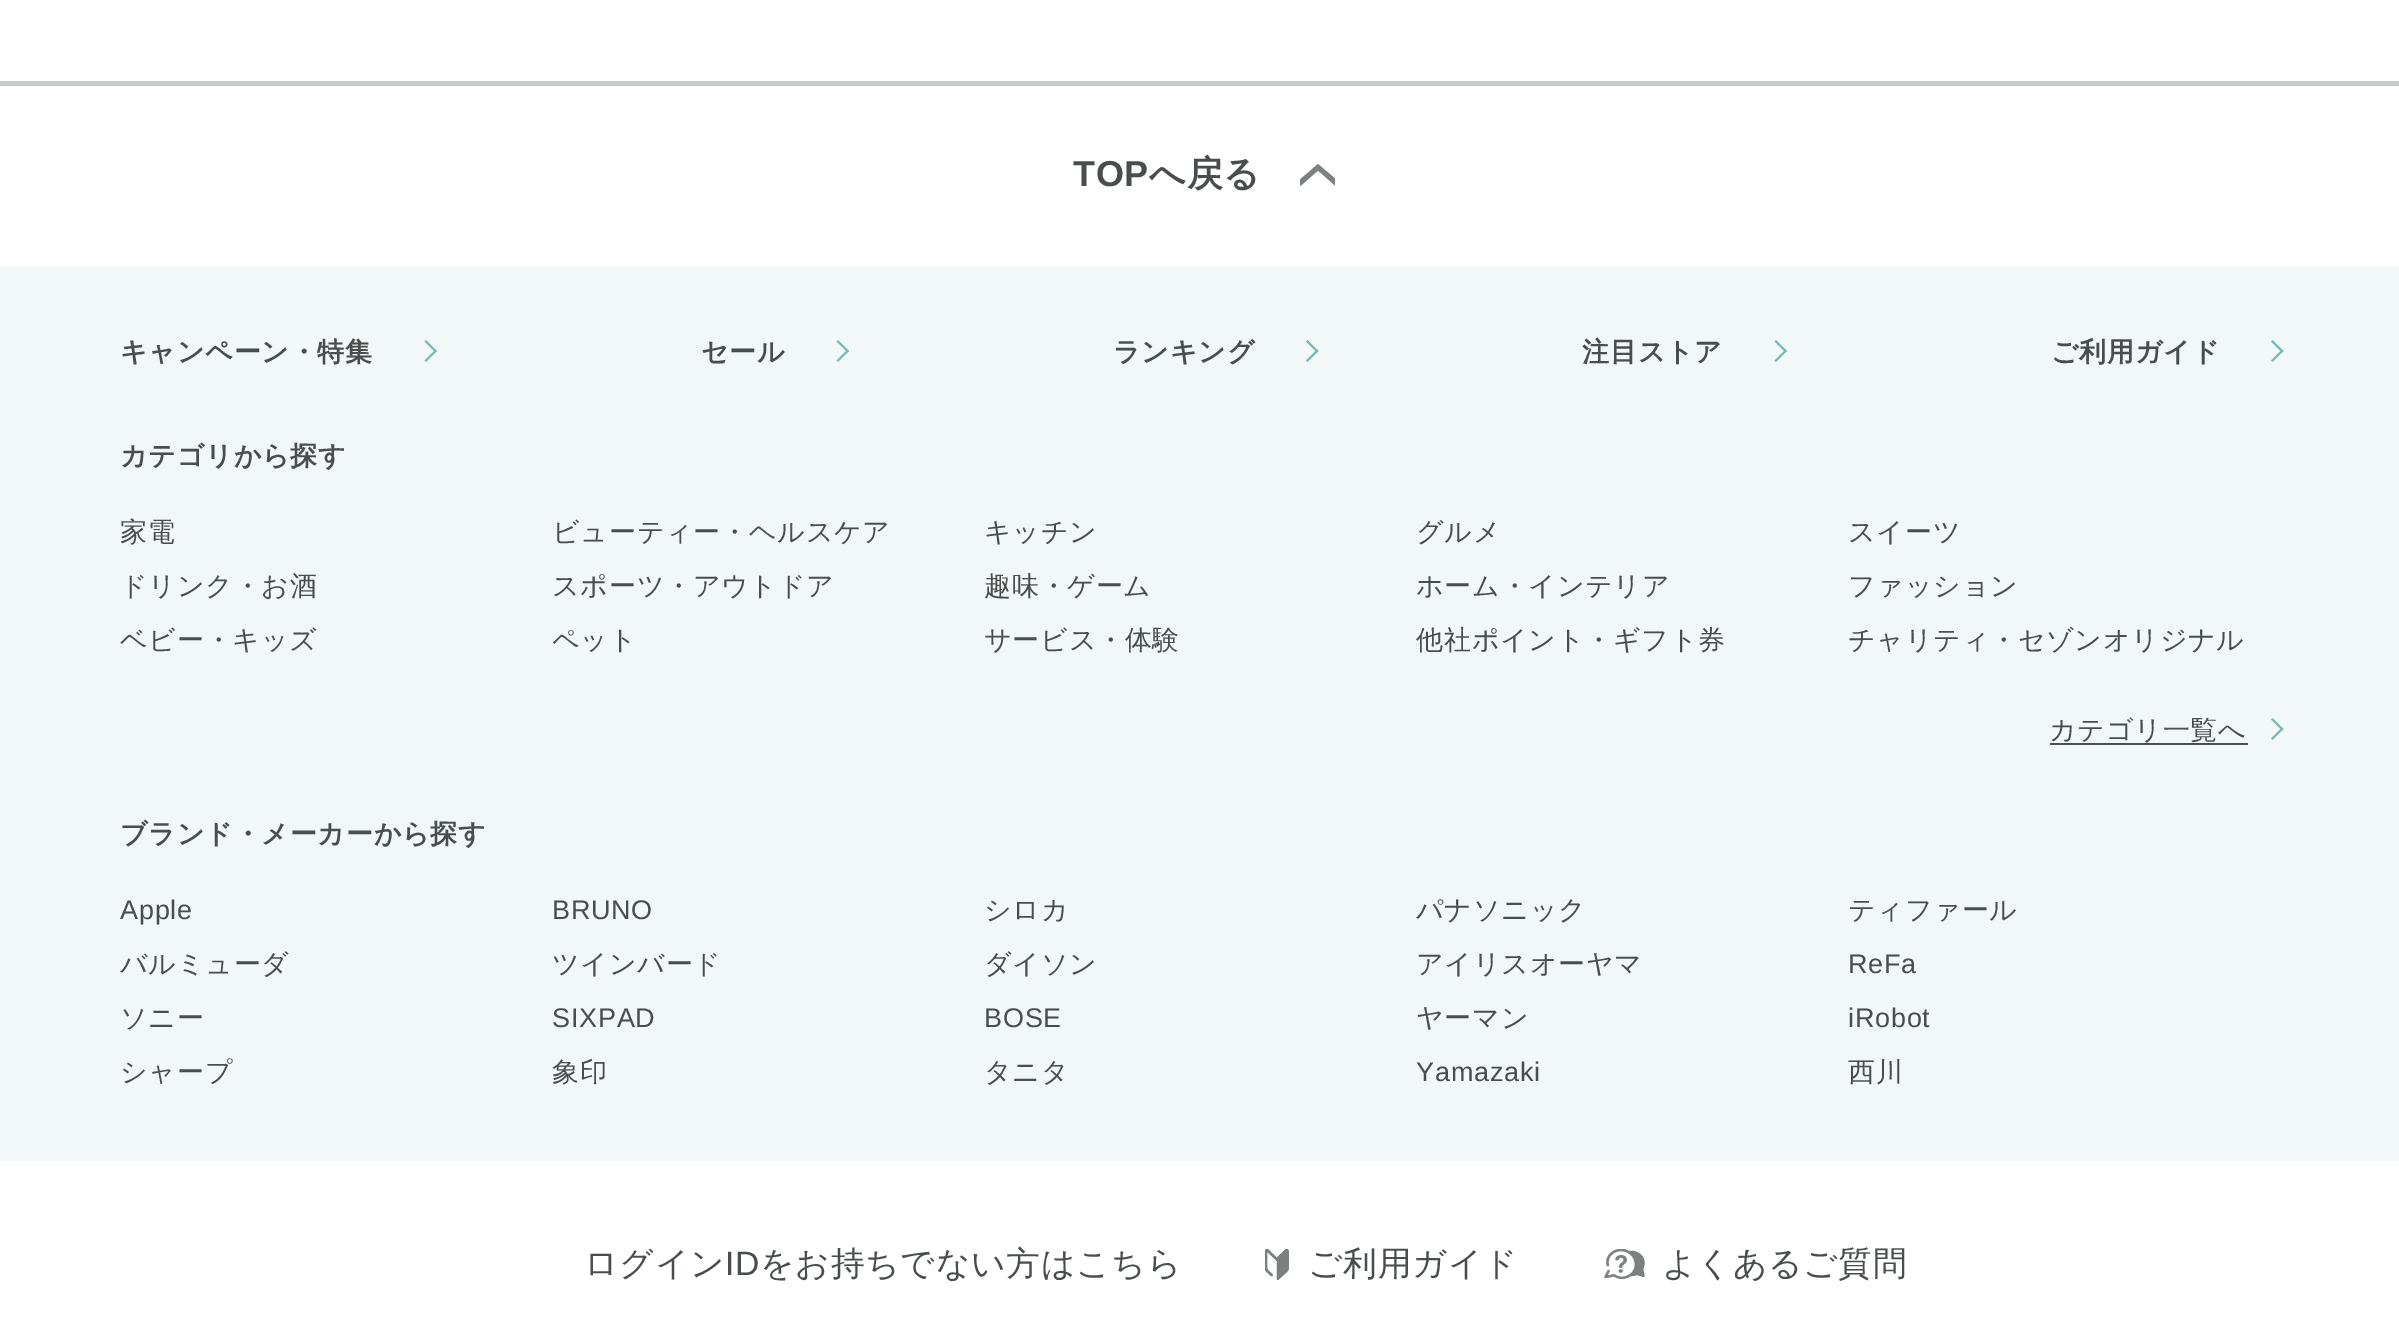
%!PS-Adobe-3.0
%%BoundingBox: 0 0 2399 1338
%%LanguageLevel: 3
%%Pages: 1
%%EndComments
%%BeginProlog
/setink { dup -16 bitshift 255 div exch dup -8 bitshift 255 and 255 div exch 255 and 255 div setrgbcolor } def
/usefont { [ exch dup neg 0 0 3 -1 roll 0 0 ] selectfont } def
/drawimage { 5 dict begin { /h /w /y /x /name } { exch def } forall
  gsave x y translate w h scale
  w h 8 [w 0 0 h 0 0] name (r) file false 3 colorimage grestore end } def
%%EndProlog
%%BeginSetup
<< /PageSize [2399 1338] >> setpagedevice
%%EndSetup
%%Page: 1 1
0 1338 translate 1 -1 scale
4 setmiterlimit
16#FFFFFF setink
0 0 2399 1338 rectfill
16#C6CCCB setink
0 81 2399 5 rectfill
/LiberationSans-Bold 36 usefont
16#494D4C setink
1073 186 moveto 0.75 0 (TOP) ashow
/WenQuanYiZenHei-Bold 36 usefont
1149 186 moveto 0.75 0 (へ戻る) ashow
16#7C807F setink
1318 170.5 moveto 1335 185.5 lineto 1335 178.5 lineto 1318 164 lineto 1300 179.5 lineto 1300 185.5 lineto 1301 185.5 lineto closepath fill
16#F2F7F7 setink
0 266 2399 895 rectfill
/WenQuanYiZenHei-Bold 27 usefont
16#494D4C setink
120 361 moveto 0.75 0 (キャンペーン・特集) ashow
16#77BAB3 setink
426 340 moveto 437 351 lineto 435.5 352.5 lineto 424.5 341.5 lineto closepath fill
435.5 349.5 moveto 437 351 lineto 426 362 lineto 424.5 360.5 lineto closepath fill
16#494D4C setink
701 361 moveto 0.75 0 (セール) ashow
16#77BAB3 setink
838 340 moveto 849 351 lineto 847.5 352.5 lineto 836.5 341.5 lineto closepath fill
847.5 349.5 moveto 849 351 lineto 838 362 lineto 836.5 360.5 lineto closepath fill
16#494D4C setink
1113 361 moveto 0.75 0 (ランキング) ashow
16#77BAB3 setink
1307.5 340 moveto 1318.5 351 lineto 1317 352.5 lineto 1306 341.5 lineto closepath fill
1317 349.5 moveto 1318.5 351 lineto 1307.5 362 lineto 1306 360.5 lineto closepath fill
16#494D4C setink
1582 361 moveto 0.75 0 (注目ストア) ashow
16#77BAB3 setink
1776 340 moveto 1787 351 lineto 1785.5 352.5 lineto 1774.5 341.5 lineto closepath fill
1785.5 349.5 moveto 1787 351 lineto 1776 362 lineto 1774.5 360.5 lineto closepath fill
16#494D4C setink
2051 361 moveto 0.75 0 (ご利用ガイド) ashow
16#77BAB3 setink
2272.5 340 moveto 2283.5 351 lineto 2282 352.5 lineto 2271 341.5 lineto closepath fill
2282 349.5 moveto 2283.5 351 lineto 2272.5 362 lineto 2271 360.5 lineto closepath fill
16#494D4C setink
120 465 moveto 0.75 0 (カテゴリから探す) ashow
/WenQuanYiZenHei-Medium 27 usefont
120 541 moveto 0.75 0 (家電) ashow
552 541 moveto 0.75 0 (ビューティー・ヘルスケア) ashow
984 541 moveto 0.75 0 (キッチン) ashow
1416 541 moveto 0.75 0 (グルメ) ashow
1848 541 moveto 0.75 0 (スイーツ) ashow
120 595 moveto 0.75 0 (ドリンク・お酒) ashow
552 595 moveto 0.75 0 (スポーツ・アウトドア) ashow
984 595 moveto 0.75 0 (趣味・ゲーム) ashow
1416 595 moveto 0.75 0 (ホーム・インテリア) ashow
1848 595 moveto 0.75 0 (ファッション) ashow
120 649 moveto 0.75 0 (ベビー・キッズ) ashow
552 649 moveto 0.75 0 (ペット) ashow
984 649 moveto 0.75 0 (サービス・体験) ashow
1416 649 moveto 0.75 0 (他社ポイント・ギフト券) ashow
1848 649 moveto 0.75 0 (チャリティ・セゾンオリジナル) ashow
2049 739 moveto 0.75 0 (カテゴリ一覧へ) ashow
2050 743 198 2 rectfill
16#77BAB3 setink
2272.5 718 moveto 2283.5 729 lineto 2282 730.5 lineto 2271 719.5 lineto closepath fill
2282 727.5 moveto 2283.5 729 lineto 2272.5 740 lineto 2271 738.5 lineto closepath fill
/WenQuanYiZenHei-Bold 27 usefont
16#494D4C setink
120 843 moveto 0.75 0 (ブランド・メーカーから探す) ashow
/LiberationSans-Regular 27 usefont
120 919 moveto 0.75 0 (Apple) ashow
552 919 moveto 0.75 0 (BRUNO) ashow
/WenQuanYiZenHei-Medium 27 usefont
984 919 moveto 0.75 0 (シロカ) ashow
1416 919 moveto 0.75 0 (パナソニック) ashow
1848 919 moveto 0.75 0 (ティファール) ashow
120 973 moveto 0.75 0 (バルミューダ) ashow
552 973 moveto 0.75 0 (ツインバード) ashow
984 973 moveto 0.75 0 (ダイソン) ashow
1416 973 moveto 0.75 0 (アイリスオーヤマ) ashow
/LiberationSans-Regular 27 usefont
1848 973 moveto 0.75 0 (ReFa) ashow
/WenQuanYiZenHei-Medium 27 usefont
120 1027 moveto 0.75 0 (ソニー) ashow
/LiberationSans-Regular 27 usefont
552 1027 moveto 0.75 0 (SIXPAD) ashow
984 1027 moveto 0.75 0 (BOSE) ashow
/WenQuanYiZenHei-Medium 27 usefont
1416 1027 moveto 0.75 0 (ヤーマン) ashow
/LiberationSans-Regular 27 usefont
1848 1027 moveto 0.75 0 (iRobot) ashow
/WenQuanYiZenHei-Medium 27 usefont
120 1081 moveto 0.75 0 (シャープ) ashow
552 1081 moveto 0.75 0 (象印) ashow
984 1081 moveto 0.75 0 (タニタ) ashow
/LiberationSans-Regular 27 usefont
1416 1081 moveto 0.75 0 (Yamazaki) ashow
/WenQuanYiZenHei-Medium 27 usefont
1848 1081 moveto 0.75 0 (西川) ashow
/WenQuanYiZenHei-Medium 33.75 usefont
584 1275 moveto 0.75 0 (ログイン) ashow
/LiberationSans-Regular 33.75 usefont
725 1275 moveto 0.75 0 (ID) ashow
/WenQuanYiZenHei-Medium 33.75 usefont
760 1275 moveto 0.75 0 (をお持ちでない方はこちら) ashow
(img1.raw) 1265 1249 24 31 drawimage
1308 1275 moveto 0.75 0 (ご利用ガイド) ashow
(img2.raw) 1604 1249 41 31 drawimage
1662 1275 moveto 0.75 0 (よくあるご質問) ashow
showpage
%%EOF
